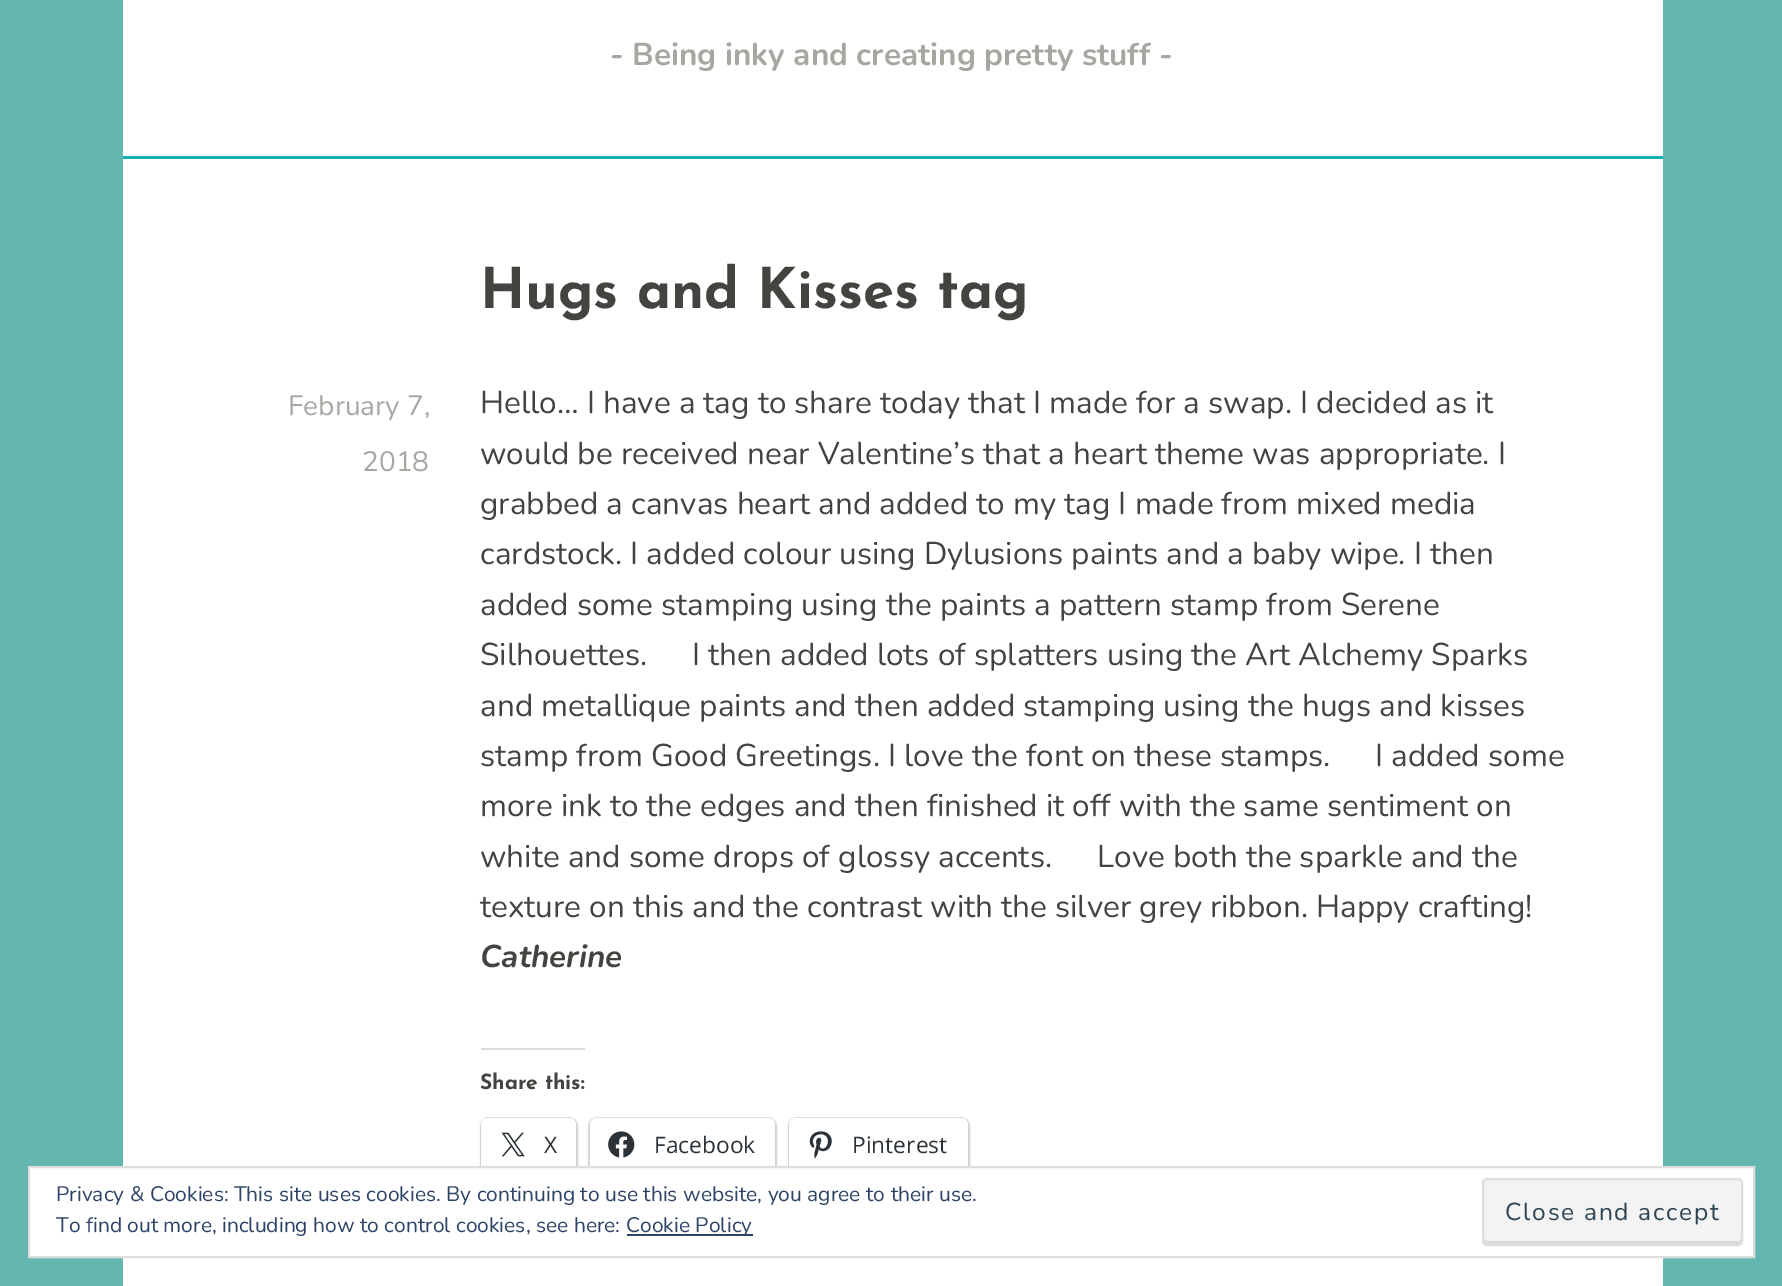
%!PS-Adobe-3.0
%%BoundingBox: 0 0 1782 1286
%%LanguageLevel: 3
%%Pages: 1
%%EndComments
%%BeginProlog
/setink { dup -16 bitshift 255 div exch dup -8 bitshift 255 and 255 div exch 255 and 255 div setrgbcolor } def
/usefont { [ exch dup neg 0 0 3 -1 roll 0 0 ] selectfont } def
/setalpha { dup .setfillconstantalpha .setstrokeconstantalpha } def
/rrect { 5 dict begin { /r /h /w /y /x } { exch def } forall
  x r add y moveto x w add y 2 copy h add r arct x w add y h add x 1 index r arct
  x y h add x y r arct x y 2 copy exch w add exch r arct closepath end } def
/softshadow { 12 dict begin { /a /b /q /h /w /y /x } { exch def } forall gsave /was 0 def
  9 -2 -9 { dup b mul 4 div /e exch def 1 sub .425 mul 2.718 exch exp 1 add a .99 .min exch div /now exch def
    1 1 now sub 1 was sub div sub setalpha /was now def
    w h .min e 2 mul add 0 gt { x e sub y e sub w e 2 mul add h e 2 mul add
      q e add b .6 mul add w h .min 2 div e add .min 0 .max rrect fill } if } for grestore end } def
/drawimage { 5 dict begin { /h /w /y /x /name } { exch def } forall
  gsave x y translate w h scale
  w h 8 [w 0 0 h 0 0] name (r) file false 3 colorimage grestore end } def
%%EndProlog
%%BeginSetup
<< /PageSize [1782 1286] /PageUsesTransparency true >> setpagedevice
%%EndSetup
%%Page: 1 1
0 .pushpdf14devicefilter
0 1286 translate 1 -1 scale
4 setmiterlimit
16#64B6B1 setink
0 0 1782 1286 rectfill
16#FFFFFF setink
123 0 1540 156 rectfill
/Nunito-Bold 31.5 usefont
16#A8A6A1 setink
610 65 moveto (- Being inky and creating pretty stuff -) show
16#14B1B2 setink
123 156 1540 3 rectfill
16#FFFFFF setink
123 159 1540 1127 rectfill
/JosefinSans-Thin 56 usefont
16#444340 setink
480 308 moveto (Hugs and Kisses tag) show
/Nunito-Regular 28 usefont
16#A8A6A1 setink
288 415 moveto (February 7,) show
362 471 moveto (2018) show
/Nunito-Regular 31.5 usefont
16#444340 setink
[
    [(Hello… I have a tag to share today that I made for a swap. I decided as it) 480 413]
    [(would be received near Valentine’s that a heart theme was appropriate. I) 480 464]
    [(grabbed a canvas heart and added to my tag I made from mixed media) 480 514]
    [(cardstock. I added colour using Dylusions paints and a baby wipe. I then) 480 564]
    [(added some stamping using the paints a pattern stamp from Serene) 480 615]
    [(Silhouettes.) 480 665]
    [(I then added lots of splatters using the Art Alchemy Sparks) 692 665]
    [(and metallique paints and then added stamping using the hugs and kisses) 480 716]
    [(stamp from Good Greetings. I love the font on these stamps.) 480 766]
    [(I added some) 1375 766]
    [(more ink to the edges and then finished it off with the same sentiment on) 480 816]
    [(white and some drops of glossy accents.) 480 867]
    [(Love both the sparkle and the) 1097 867]
    [(texture on this and the contrast with the silver grey ribbon. Happy crafting!) 480 917]
] { aload pop moveto show } forall
/Nunito-BoldItalic 31.5 usefont
480 967 moveto (Catherine) show
16#DCDCDE setink
481 1048 104 2 rectfill
/JosefinSans-Thin 21 usefont
16#444340 setink
480 1089 moveto (Share this:) show
16#E0E0E0 setink
2 setlinewidth
481 1118 96 54 8 rrect stroke
16#000000 setink
481 1120 95 53 7 2 0.12 softshadow
16#FFFFFF setink
481 1118 95 53 7 rrect fill
(img1.raw) 501 1132 24 25 drawimage
/OpenSans-Regular 22.75 usefont
16#2C3338 setink
544 1153 moveto (X) show
16#E0E0E0 setink
589 1118 187 54 8 rrect stroke
16#000000 setink
590 1120 185 53 7 2 0.12 softshadow
16#FFFFFF setink
590 1118 185 53 7 rrect fill
(img2.raw) 608 1131 27 27 drawimage
16#2C3338 setink
654 1153 moveto (Facebook) show
16#E0E0E0 setink
789 1118 180 54 8 rrect stroke
16#000000 setink
789 1120 179 53 7 2 0.12 softshadow
16#FFFFFF setink
789 1118 179 53 7 rrect fill
(img3.raw) 809 1131 23 28 drawimage
16#2C3338 setink
852 1153 moveto (Pinterest) show
16#FFFFFF setink
29 1167 moveto 1754 1167 lineto 1754 1257 lineto 29 1257 lineto closepath gsave fill grestore
16#DEDEDE setink
stroke
/Nunito-Regular 21 usefont
16#2E4467 setink
56 1201 moveto (Privacy & Cookies: This site uses cookies. By continuing to use this website, you agree to their use.) show
56 1232 moveto (To find out more, including how to control cookies, see here:) show
627 1234 126 2 rectfill
626 1232 moveto (Cookie Policy) show
16#F3F3F3 setink
1482 1178 261 68 5 rrect fill
16#DBDBDB setink
1484 1237 moveto 1484 1240 lineto 1484 1242 1486 1244 1488 1244 curveto 1737 1244 lineto 1739 1244 1741 1242 1741 1240 curveto 1741 1237 lineto 1741 1239 1740 1241 1738 1241 curveto 1488 1241 lineto 1486 1241 1484 1239 1484 1237 curveto closepath fill
16#DEDEDE setink
1483 1179 259 66 4 rrect stroke
/Nunito-Regular 24.5 usefont
16#2E4453 setink
1505 1220 moveto 1.75 0 (Close and accept) ashow
.poppdf14devicefilter showpage
%%EOF
